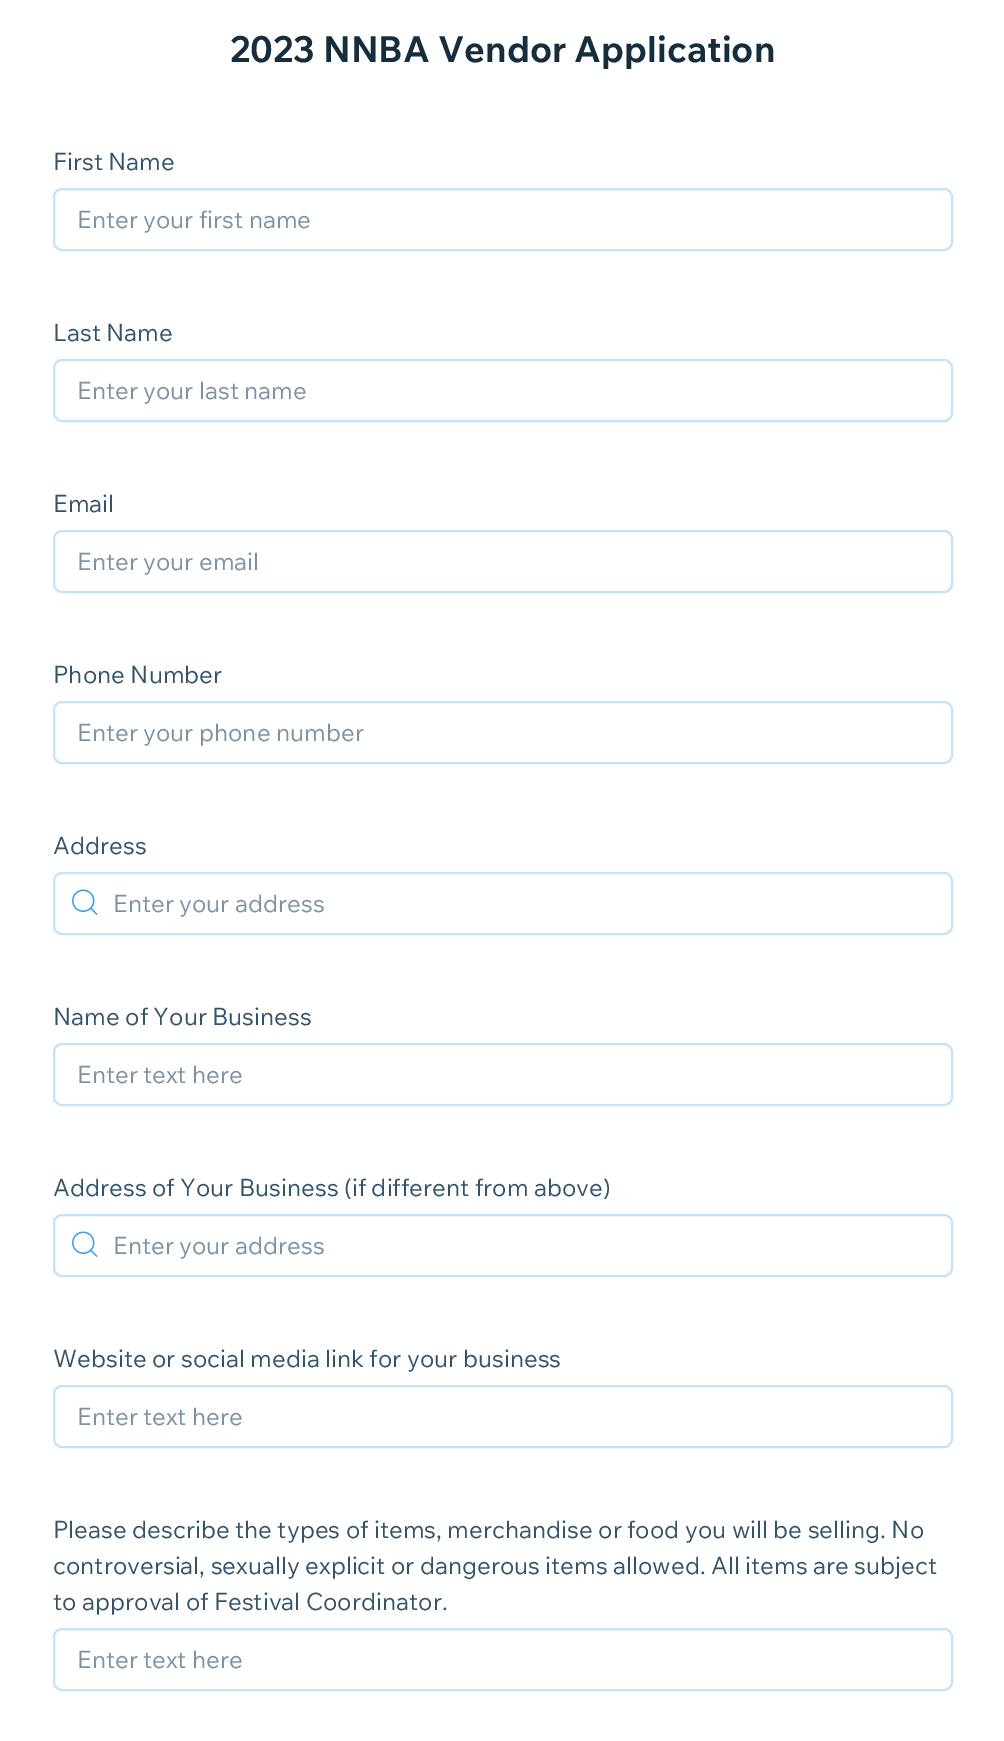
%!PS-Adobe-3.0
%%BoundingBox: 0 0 1004 1741
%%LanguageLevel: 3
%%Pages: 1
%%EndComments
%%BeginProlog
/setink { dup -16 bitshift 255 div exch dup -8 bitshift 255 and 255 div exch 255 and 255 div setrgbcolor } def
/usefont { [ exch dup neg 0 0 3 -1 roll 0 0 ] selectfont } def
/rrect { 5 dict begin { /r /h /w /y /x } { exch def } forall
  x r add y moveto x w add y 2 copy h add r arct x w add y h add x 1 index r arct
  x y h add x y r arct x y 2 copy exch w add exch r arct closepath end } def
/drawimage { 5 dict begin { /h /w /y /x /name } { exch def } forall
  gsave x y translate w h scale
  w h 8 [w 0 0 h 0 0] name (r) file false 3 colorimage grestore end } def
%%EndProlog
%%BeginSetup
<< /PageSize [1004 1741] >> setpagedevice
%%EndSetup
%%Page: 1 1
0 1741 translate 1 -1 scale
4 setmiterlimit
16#FFFFFF setink
0 0 1004 1741 rectfill
/WixMadeforText-Bold 36 usefont
16#162D3D setink
230 62 moveto (2023 NNBA Vendor Application) show
/WixMadeforText-Regular 24 usefont
16#32536A setink
53 170 moveto (First Name) show
16#C1E4FE setink
2 setlinewidth
54 189 898 61 8 rrect stroke
16#7A92A5 setink
77 228 moveto (Enter your first name) show
16#32536A setink
53 341 moveto (Last Name) show
16#C1E4FE setink
54 360 898 61 8 rrect stroke
16#7A92A5 setink
77 399 moveto (Enter your last name) show
16#32536A setink
53 512 moveto (Email) show
16#C1E4FE setink
54 531 898 61 8 rrect stroke
16#7A92A5 setink
77 570 moveto (Enter your email) show
16#32536A setink
53 683 moveto (Phone Number) show
16#C1E4FE setink
54 702 898 61 8 rrect stroke
16#7A92A5 setink
77 741 moveto (Enter your phone number) show
16#32536A setink
53 854 moveto (Address) show
16#C1E4FE setink
54 873 898 61 8 rrect stroke
(img1.raw) 72 889 26 26 drawimage
16#7A92A5 setink
113 912 moveto (Enter your address) show
16#32536A setink
53 1025 moveto (Name of Your Business) show
16#C1E4FE setink
54 1044 898 61 8 rrect stroke
16#7A92A5 setink
77 1083 moveto (Enter text here) show
16#32536A setink
53 1196 moveto (Address of Your Business \(if different from above\)) show
16#C1E4FE setink
54 1215 898 61 8 rrect stroke
(img1.raw) 72 1231 26 26 drawimage
16#7A92A5 setink
113 1254 moveto (Enter your address) show
16#32536A setink
53 1367 moveto (Website or social media link for your business) show
16#C1E4FE setink
54 1386 898 61 8 rrect stroke
16#7A92A5 setink
77 1425 moveto (Enter text here) show
16#32536A setink
[
    [(Please describe the types of items, merchandise or food you will be selling. No) 53 1538]
    [(controversial, sexually explicit or dangerous items allowed. All items are subject) 53 1574]
    [(to approval of Festival Coordinator.) 53 1610]
] { aload pop moveto show } forall
16#C1E4FE setink
54 1629 898 61 8 rrect stroke
16#7A92A5 setink
77 1668 moveto (Enter text here) show
showpage
%%EOF
